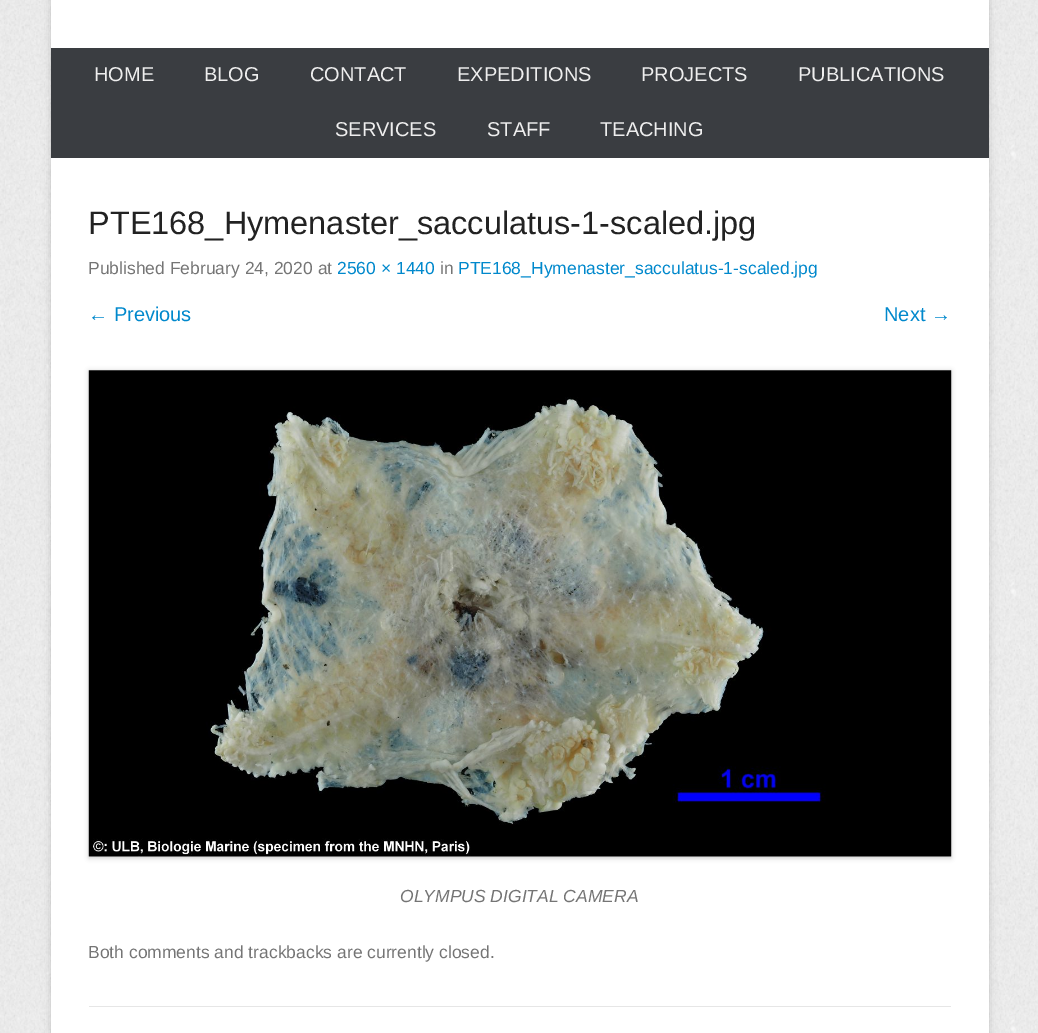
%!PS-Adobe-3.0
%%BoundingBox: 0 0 1038 1033
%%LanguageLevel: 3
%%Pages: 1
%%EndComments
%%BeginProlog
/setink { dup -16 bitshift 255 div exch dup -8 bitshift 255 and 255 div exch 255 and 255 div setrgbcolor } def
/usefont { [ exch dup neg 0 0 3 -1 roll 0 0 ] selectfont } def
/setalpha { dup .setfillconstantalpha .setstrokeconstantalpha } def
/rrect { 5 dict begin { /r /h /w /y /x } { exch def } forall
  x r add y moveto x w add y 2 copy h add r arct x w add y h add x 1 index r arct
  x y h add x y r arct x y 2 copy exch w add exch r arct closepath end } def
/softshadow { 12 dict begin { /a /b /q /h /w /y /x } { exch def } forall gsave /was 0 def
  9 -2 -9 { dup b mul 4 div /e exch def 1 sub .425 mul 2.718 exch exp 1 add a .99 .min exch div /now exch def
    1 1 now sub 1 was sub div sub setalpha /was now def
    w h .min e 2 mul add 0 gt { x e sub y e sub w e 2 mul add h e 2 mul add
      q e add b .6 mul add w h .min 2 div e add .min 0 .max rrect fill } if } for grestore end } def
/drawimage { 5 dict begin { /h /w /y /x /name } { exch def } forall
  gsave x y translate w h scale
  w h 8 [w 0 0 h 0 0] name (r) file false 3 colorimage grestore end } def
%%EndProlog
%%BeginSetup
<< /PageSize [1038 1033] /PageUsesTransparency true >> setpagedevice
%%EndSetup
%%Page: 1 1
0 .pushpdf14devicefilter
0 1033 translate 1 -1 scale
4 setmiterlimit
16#FFFFFF setink
0 0 1038 1033 rectfill
(img1.raw) 0 0 1038 1033 drawimage
16#646464 setink
51 -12 938 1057 0 4 0.3 softshadow
16#FFFFFF setink
51 0 938 1033 rectfill
16#3A3D41 setink
51 48 938 110 rectfill
/LiberationSans-Regular 20 usefont
16#EEEEEE setink
[
    [(HOME) 94 81]
    [(BLOG) 204 81]
    [(CONTACT) 310 81]
    [(EXPEDITIONS) 457 81]
    [(PROJECTS) 641 81]
    [(PUBLICATIONS) 798 81]
    [(SERVICES) 335 136]
    [(STAFF) 487 136]
    [(TEACHING) 600 136]
] { aload pop moveto show } forall
16#E6E6E6 setink
89 1006 862 1 rectfill
/LiberationSans-Regular 32.5 usefont
16#222222 setink
88 234 moveto (PTE168_Hymenaster_sacculatus-1-scaled.jpg) show
/LiberationSans-Regular 17.5 usefont
16#757575 setink
88 274 moveto (Published February 24, 2020 at) show
16#0088CC setink
337 274 moveto (2560 × 1440) show
16#757575 setink
440 274 moveto (in) show
16#0088CC setink
458 274 moveto (PTE168_Hymenaster_sacculatus-1-scaled.jpg) show
/LiberationSans-Regular 20 usefont
88 321 moveto (← Previous) show
884 321 moveto (Next →) show
16#000000 setink
89 371 862 487 0 2.5 0.2 softshadow
(img2.raw) 88 370 864 487 drawimage
/LiberationSans-Italic 17.5 usefont
16#757575 setink
400 902 moveto (OLYMPUS DIGITAL CAMERA) show
/LiberationSans-Regular 17.5 usefont
88 958 moveto (Both comments and trackbacks are currently closed.) show
.poppdf14devicefilter showpage
%%EOF
